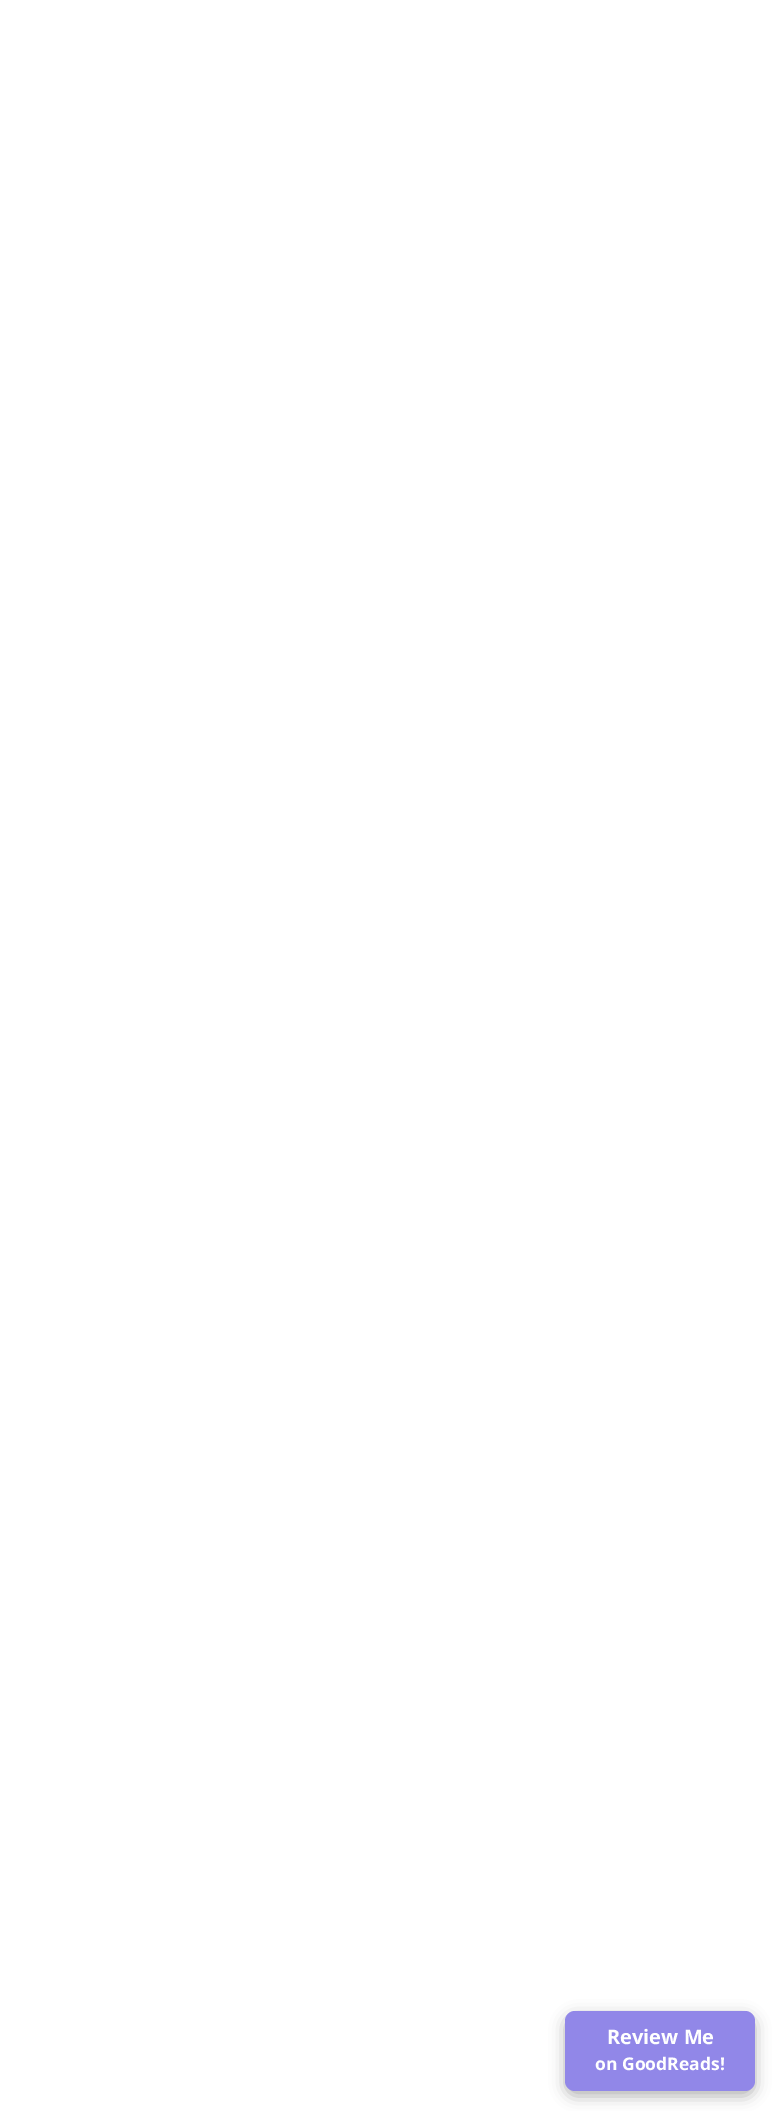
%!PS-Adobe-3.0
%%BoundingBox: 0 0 774 2111
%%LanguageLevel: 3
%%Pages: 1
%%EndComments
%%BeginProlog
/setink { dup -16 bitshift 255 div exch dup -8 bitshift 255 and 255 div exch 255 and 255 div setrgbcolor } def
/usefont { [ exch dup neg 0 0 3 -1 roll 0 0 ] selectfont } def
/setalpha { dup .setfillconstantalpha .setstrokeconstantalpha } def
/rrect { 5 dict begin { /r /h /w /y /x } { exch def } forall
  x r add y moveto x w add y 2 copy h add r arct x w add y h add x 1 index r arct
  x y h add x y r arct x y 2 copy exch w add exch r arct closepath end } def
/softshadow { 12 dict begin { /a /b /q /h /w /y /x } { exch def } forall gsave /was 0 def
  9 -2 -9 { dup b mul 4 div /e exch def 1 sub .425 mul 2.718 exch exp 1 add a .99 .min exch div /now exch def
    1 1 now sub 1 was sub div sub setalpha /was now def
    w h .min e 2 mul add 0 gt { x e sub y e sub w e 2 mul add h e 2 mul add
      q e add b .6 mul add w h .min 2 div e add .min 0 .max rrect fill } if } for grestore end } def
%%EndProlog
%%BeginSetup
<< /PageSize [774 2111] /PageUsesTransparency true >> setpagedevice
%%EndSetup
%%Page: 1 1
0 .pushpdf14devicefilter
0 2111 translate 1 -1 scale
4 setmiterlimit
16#FFFFFF setink
0 0 774 2111 rectfill
16#000000 setink
565 2016 190 80 10 7.5 0.3 softshadow
16#9187E8 setink
565 2011 190 80 10 rrect fill
/OpenSans-Bold 20 usefont
16#FFFFFF setink
607 2044 moveto (Review Me) show
/OpenSans-Bold 17.5 usefont
595 2070 moveto (on GoodReads!) show
.poppdf14devicefilter showpage
%%EOF
